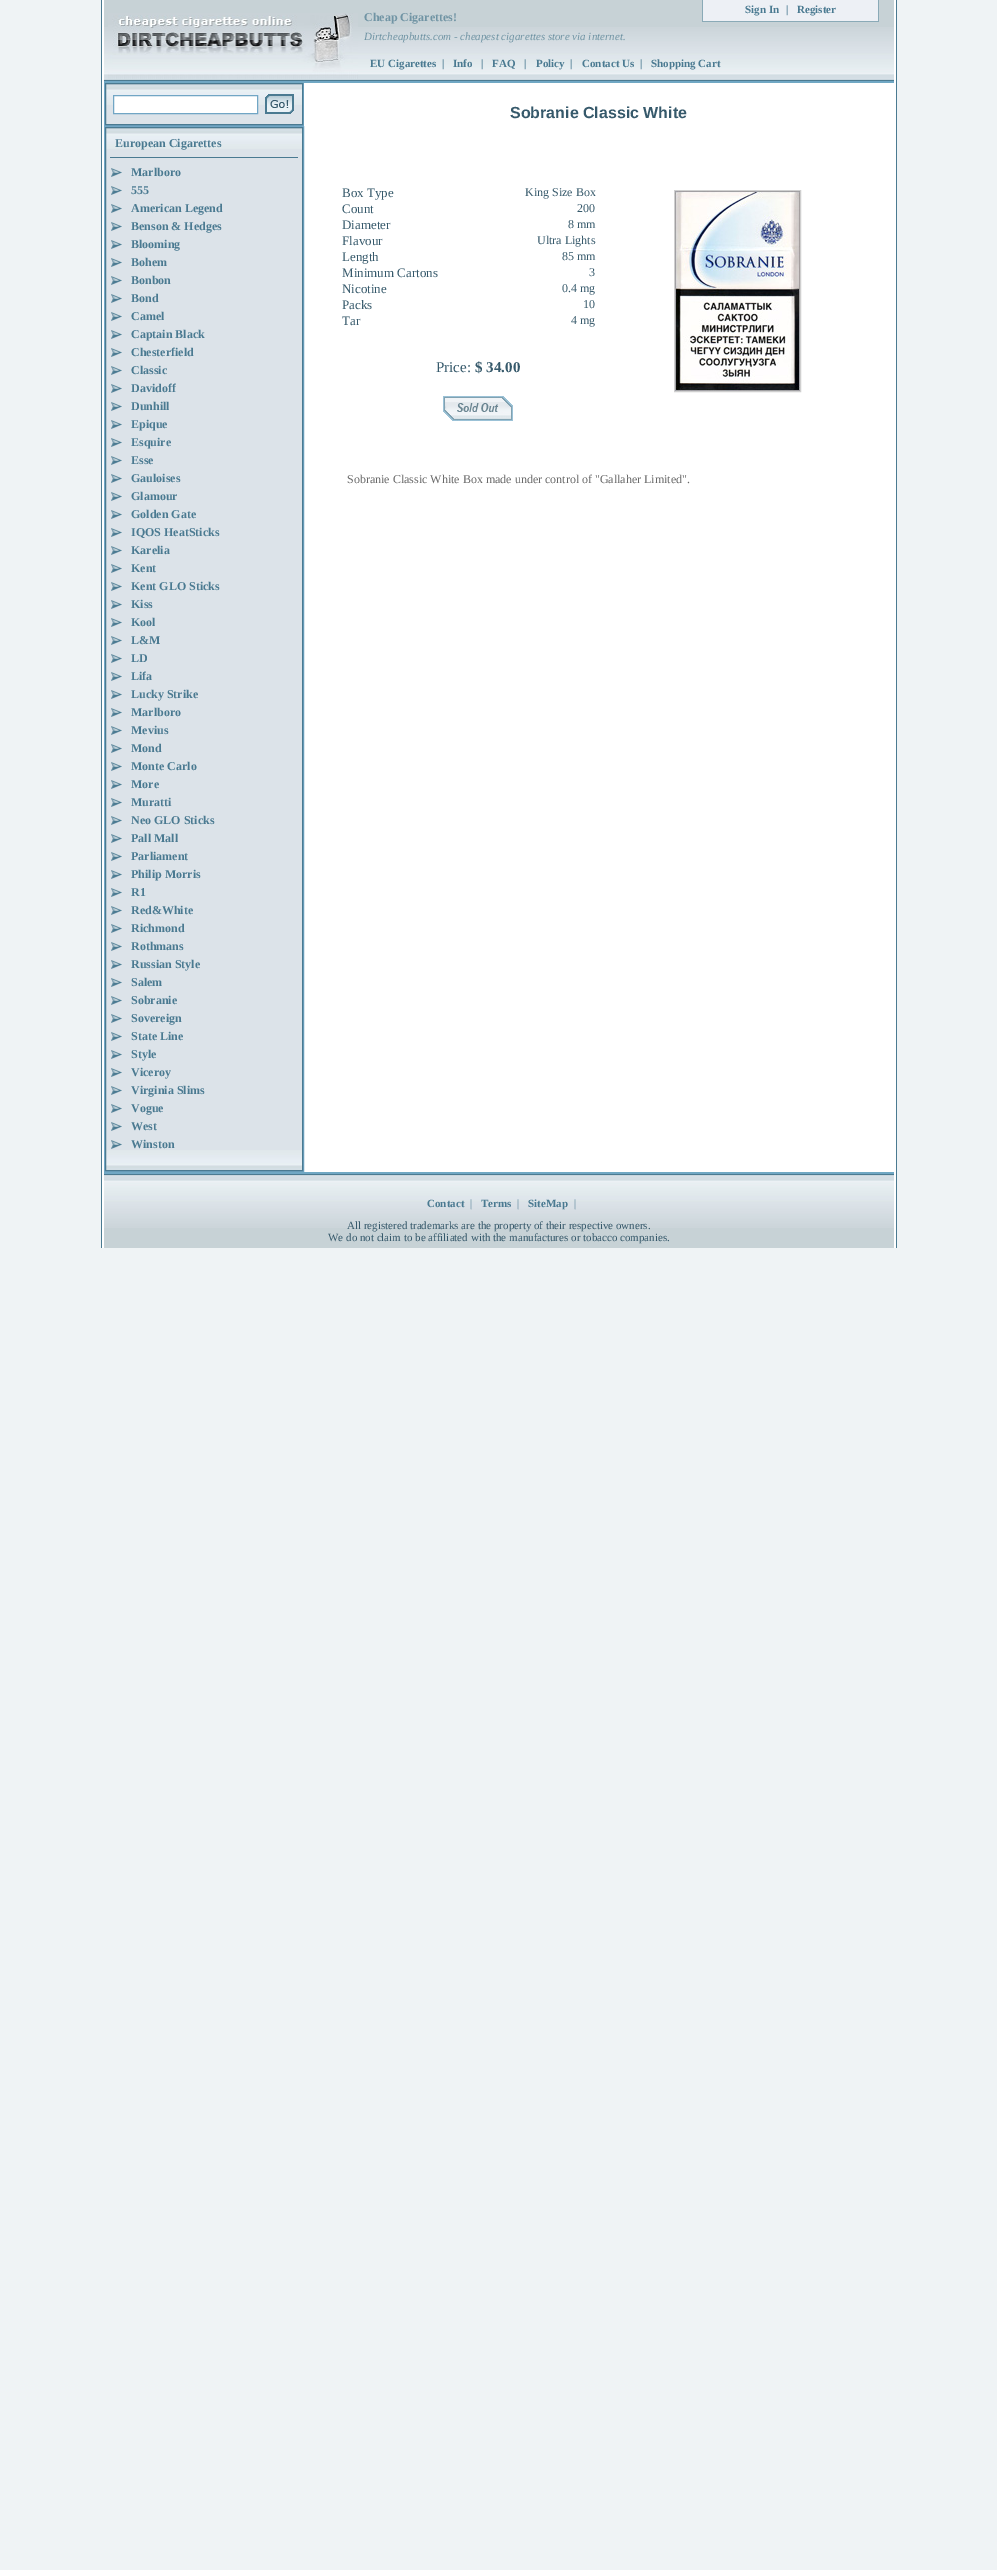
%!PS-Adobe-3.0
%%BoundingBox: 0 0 997 2570
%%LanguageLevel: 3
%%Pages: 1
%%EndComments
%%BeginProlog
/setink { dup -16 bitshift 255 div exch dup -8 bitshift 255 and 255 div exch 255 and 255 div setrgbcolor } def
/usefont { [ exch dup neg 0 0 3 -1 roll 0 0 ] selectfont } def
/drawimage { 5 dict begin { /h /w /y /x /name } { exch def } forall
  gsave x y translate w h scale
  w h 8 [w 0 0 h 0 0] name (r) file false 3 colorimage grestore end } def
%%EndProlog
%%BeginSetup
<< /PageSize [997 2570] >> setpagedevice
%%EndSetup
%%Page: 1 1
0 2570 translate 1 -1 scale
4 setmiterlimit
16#EFF3F5 setink
0 0 997 2570 rectfill
[
    [102 0 794 1248 16#FFFFFF]
    [896 0 1 1248 16#4A7A91]
    [101 0 1 1248 16#4A7A91]
    [104 0 790 27 16#C7D2D6]
] { aload pop setink rectfill } forall
(img1.raw) 104 27 790 56 drawimage
(img2.raw) 108 13 250 66 drawimage
[
    [703 0 175 21 16#EDF0F5]
    [878 0 1 22 16#8AAAB7]
    [702 21 177 1 16#8AAAB7]
    [702 0 1 22 16#8AAAB7]
] { aload pop setink rectfill } forall
/LiberationSerif-Bold 11 usefont
16#4A7A91 setink
[
    [(Sign In) 745 13]
    [(|) 786 13]
    [(Register) 797 13]
] { aload pop moveto show } forall
/LiberationSerif-Bold 12 usefont
16#7094A4 setink
364 21 moveto (Cheap Cigarettes!) show
/LiberationSerif-Italic 11 usefont
364 40 moveto (Dirtcheapbutts.com - cheapest cigarettes store via internet.) show
/LiberationSerif-Bold 11 usefont
16#4A7A91 setink
[
    [(EU Cigarettes) 370 67]
    [(|) 442 67]
    [(Info) 453 67]
    [(|) 481 67]
    [(FAQ) 492 67]
    [(|) 524 67]
    [(Policy) 536 67]
    [(|) 570 67]
    [(Contact Us) 582 67]
    [(|) 640 67]
    [(Shopping Cart) 651 67]
] { aload pop moveto show } forall
[
    [106 105 196 19 16#DCE3E9]
    [303 83 1 43 16#71A6C5]
    [104 125 200 1 16#71A6C5]
    [104 83 1 43 16#71A6C5]
] { aload pop setink rectfill } forall
(img3.raw) 106 84 196 21 drawimage
16#4A7A91 setink
105.5 83.5 197 41 rectstroke
16#FFFFFF setink
113.5 95.5 moveto 257.5 95.5 lineto 257.5 113.5 lineto 113.5 113.5 lineto closepath gsave fill grestore
16#71A6C5 setink
stroke
(img4.raw) 265 94 29 20 drawimage
16#DCE3E9 setink
106 149 196 1001 rectfill
(img5.raw) 106 1150 196 20 drawimage
16#71A6C5 setink
104.5 126.5 199 1045 rectstroke
(img3.raw) 106 128 196 21 drawimage
16#4A7A91 setink
105.5 127.5 197 1043 rectstroke
110 157 188 1 rectfill
/LiberationSerif-Bold 12 usefont
115 147 moveto (European Cigarettes) show
(img6.raw) 111 168 11 9 drawimage
131 176 moveto (Marlboro) show
(img6.raw) 111 186 11 9 drawimage
131 194 moveto (555) show
(img6.raw) 111 204 11 9 drawimage
131 212 moveto (American Legend) show
(img6.raw) 111 222 11 9 drawimage
131 230 moveto (Benson & Hedges) show
(img6.raw) 111 240 11 9 drawimage
131 248 moveto (Blooming) show
(img6.raw) 111 258 11 9 drawimage
131 266 moveto (Bohem) show
(img6.raw) 111 276 11 9 drawimage
131 284 moveto (Bonbon) show
(img6.raw) 111 294 11 9 drawimage
131 302 moveto (Bond) show
(img6.raw) 111 312 11 9 drawimage
131 320 moveto (Camel) show
(img6.raw) 111 330 11 9 drawimage
131 338 moveto (Captain Black) show
(img6.raw) 111 348 11 9 drawimage
131 356 moveto (Chesterfield) show
(img6.raw) 111 366 11 9 drawimage
131 374 moveto (Classic) show
(img6.raw) 111 384 11 9 drawimage
131 392 moveto (Davidoff) show
(img6.raw) 111 402 11 9 drawimage
131 410 moveto (Dunhill) show
(img6.raw) 111 420 11 9 drawimage
131 428 moveto (Epique) show
(img6.raw) 111 438 11 9 drawimage
131 446 moveto (Esquire) show
(img6.raw) 111 456 11 9 drawimage
131 464 moveto (Esse) show
(img6.raw) 111 474 11 9 drawimage
131 482 moveto (Gauloises) show
(img6.raw) 111 492 11 9 drawimage
131 500 moveto (Glamour) show
(img6.raw) 111 510 11 9 drawimage
131 518 moveto (Golden Gate) show
(img6.raw) 111 528 11 9 drawimage
131 536 moveto (IQOS HeatSticks) show
(img6.raw) 111 546 11 9 drawimage
131 554 moveto (Karelia) show
(img6.raw) 111 564 11 9 drawimage
131 572 moveto (Kent) show
(img6.raw) 111 582 11 9 drawimage
131 590 moveto (Kent GLO Sticks) show
(img6.raw) 111 600 11 9 drawimage
131 608 moveto (Kiss) show
(img6.raw) 111 618 11 9 drawimage
131 626 moveto (Kool) show
(img6.raw) 111 636 11 9 drawimage
131 644 moveto (L&M) show
(img6.raw) 111 654 11 9 drawimage
131 662 moveto (LD) show
(img6.raw) 111 672 11 9 drawimage
131 680 moveto (Lifa) show
(img6.raw) 111 690 11 9 drawimage
131 698 moveto (Lucky Strike) show
(img6.raw) 111 708 11 9 drawimage
131 716 moveto (Marlboro) show
(img6.raw) 111 726 11 9 drawimage
131 734 moveto (Mevius) show
(img6.raw) 111 744 11 9 drawimage
131 752 moveto (Mond) show
(img6.raw) 111 762 11 9 drawimage
131 770 moveto (Monte Carlo) show
(img6.raw) 111 780 11 9 drawimage
131 788 moveto (More) show
(img6.raw) 111 798 11 9 drawimage
131 806 moveto (Muratti) show
(img6.raw) 111 816 11 9 drawimage
131 824 moveto (Neo GLO Sticks) show
(img6.raw) 111 834 11 9 drawimage
131 842 moveto (Pall Mall) show
(img6.raw) 111 852 11 9 drawimage
131 860 moveto (Parliament) show
(img6.raw) 111 870 11 9 drawimage
131 878 moveto (Philip Morris) show
(img6.raw) 111 888 11 9 drawimage
131 896 moveto (R1) show
(img6.raw) 111 906 11 9 drawimage
131 914 moveto (Red&White) show
(img6.raw) 111 924 11 9 drawimage
131 932 moveto (Richmond) show
(img6.raw) 111 942 11 9 drawimage
131 950 moveto (Rothmans) show
(img6.raw) 111 960 11 9 drawimage
131 968 moveto (Russian Style) show
(img6.raw) 111 978 11 9 drawimage
131 986 moveto (Salem) show
(img6.raw) 111 996 11 9 drawimage
131 1004 moveto (Sobranie) show
(img6.raw) 111 1014 11 9 drawimage
131 1022 moveto (Sovereign) show
(img6.raw) 111 1032 11 9 drawimage
131 1040 moveto (State Line) show
(img6.raw) 111 1050 11 9 drawimage
131 1058 moveto (Style) show
(img6.raw) 111 1068 11 9 drawimage
131 1076 moveto (Viceroy) show
(img6.raw) 111 1086 11 9 drawimage
131 1094 moveto (Virginia Slims) show
(img6.raw) 111 1104 11 9 drawimage
131 1112 moveto (Vogue) show
(img6.raw) 111 1122 11 9 drawimage
131 1130 moveto (West) show
(img6.raw) 111 1140 11 9 drawimage
131 1148 moveto (Winston) show
/LiberationSans-Bold 16 usefont
16#36596B setink
510 118 moveto (Sobranie Classic White) show
/LiberationSerif-Regular 13 usefont
342 197 moveto (Box Type) show
/LiberationSerif-Regular 12 usefont
525 196 moveto (King Size Box) show
/LiberationSerif-Regular 13 usefont
342 213 moveto (Count) show
/LiberationSerif-Regular 12 usefont
577 212 moveto (200) show
/LiberationSerif-Regular 13 usefont
342 229 moveto (Diameter) show
/LiberationSerif-Regular 12 usefont
568 228 moveto (8 mm) show
/LiberationSerif-Regular 13 usefont
342 245 moveto (Flavour) show
/LiberationSerif-Regular 12 usefont
537 244 moveto (Ultra Lights) show
/LiberationSerif-Regular 13 usefont
342 261 moveto (Length) show
/LiberationSerif-Regular 12 usefont
562 260 moveto (85 mm) show
/LiberationSerif-Regular 13 usefont
342 277 moveto (Minimum Cartons) show
/LiberationSerif-Regular 12 usefont
589 276 moveto (3) show
/LiberationSerif-Regular 13 usefont
342 293 moveto (Nicotine) show
/LiberationSerif-Regular 12 usefont
562 292 moveto (0.4 mg) show
/LiberationSerif-Regular 13 usefont
342 309 moveto (Packs) show
/LiberationSerif-Regular 12 usefont
583 308 moveto (10) show
/LiberationSerif-Regular 13 usefont
342 325 moveto (Tar) show
/LiberationSerif-Regular 12 usefont
571 324 moveto (4 mg) show
/LiberationSerif-Regular 15 usefont
436 372 moveto (Price:) show
/LiberationSerif-Bold 15 usefont
475 372 moveto ($ 34.00) show
(img7.raw) 443 396 70 25 drawimage
16#CFCFCF setink
674.5 190.5 126 201 rectstroke
(img8.raw) 675 191 125 200 drawimage
/LiberationSerif-Regular 12 usefont
16#696969 setink
347 483 moveto (Sobranie Classic White Box made under control of "Gallaher Limited".) show
16#C7D2D6 setink
104 1228 790 20 rectfill
(img9.raw) 104 1172 790 56 drawimage
/LiberationSerif-Bold 11 usefont
16#4A7A91 setink
427 1207 moveto (Contact) show
/LiberationSerif-Regular 11 usefont
470 1207 moveto (|) show
/LiberationSerif-Bold 11 usefont
481 1207 moveto (Terms) show
/LiberationSerif-Regular 11 usefont
517 1207 moveto (|) show
/LiberationSerif-Bold 11 usefont
528 1207 moveto (SiteMap) show
/LiberationSerif-Regular 11 usefont
574 1207 moveto (|) show
16#36596B setink
347 1229 moveto (All registered trademarks are the property of their respective owners.) show
328 1241 moveto (We do not claim to be affiliated with the manufactures or tobacco companies.) show
showpage
%%EOF
